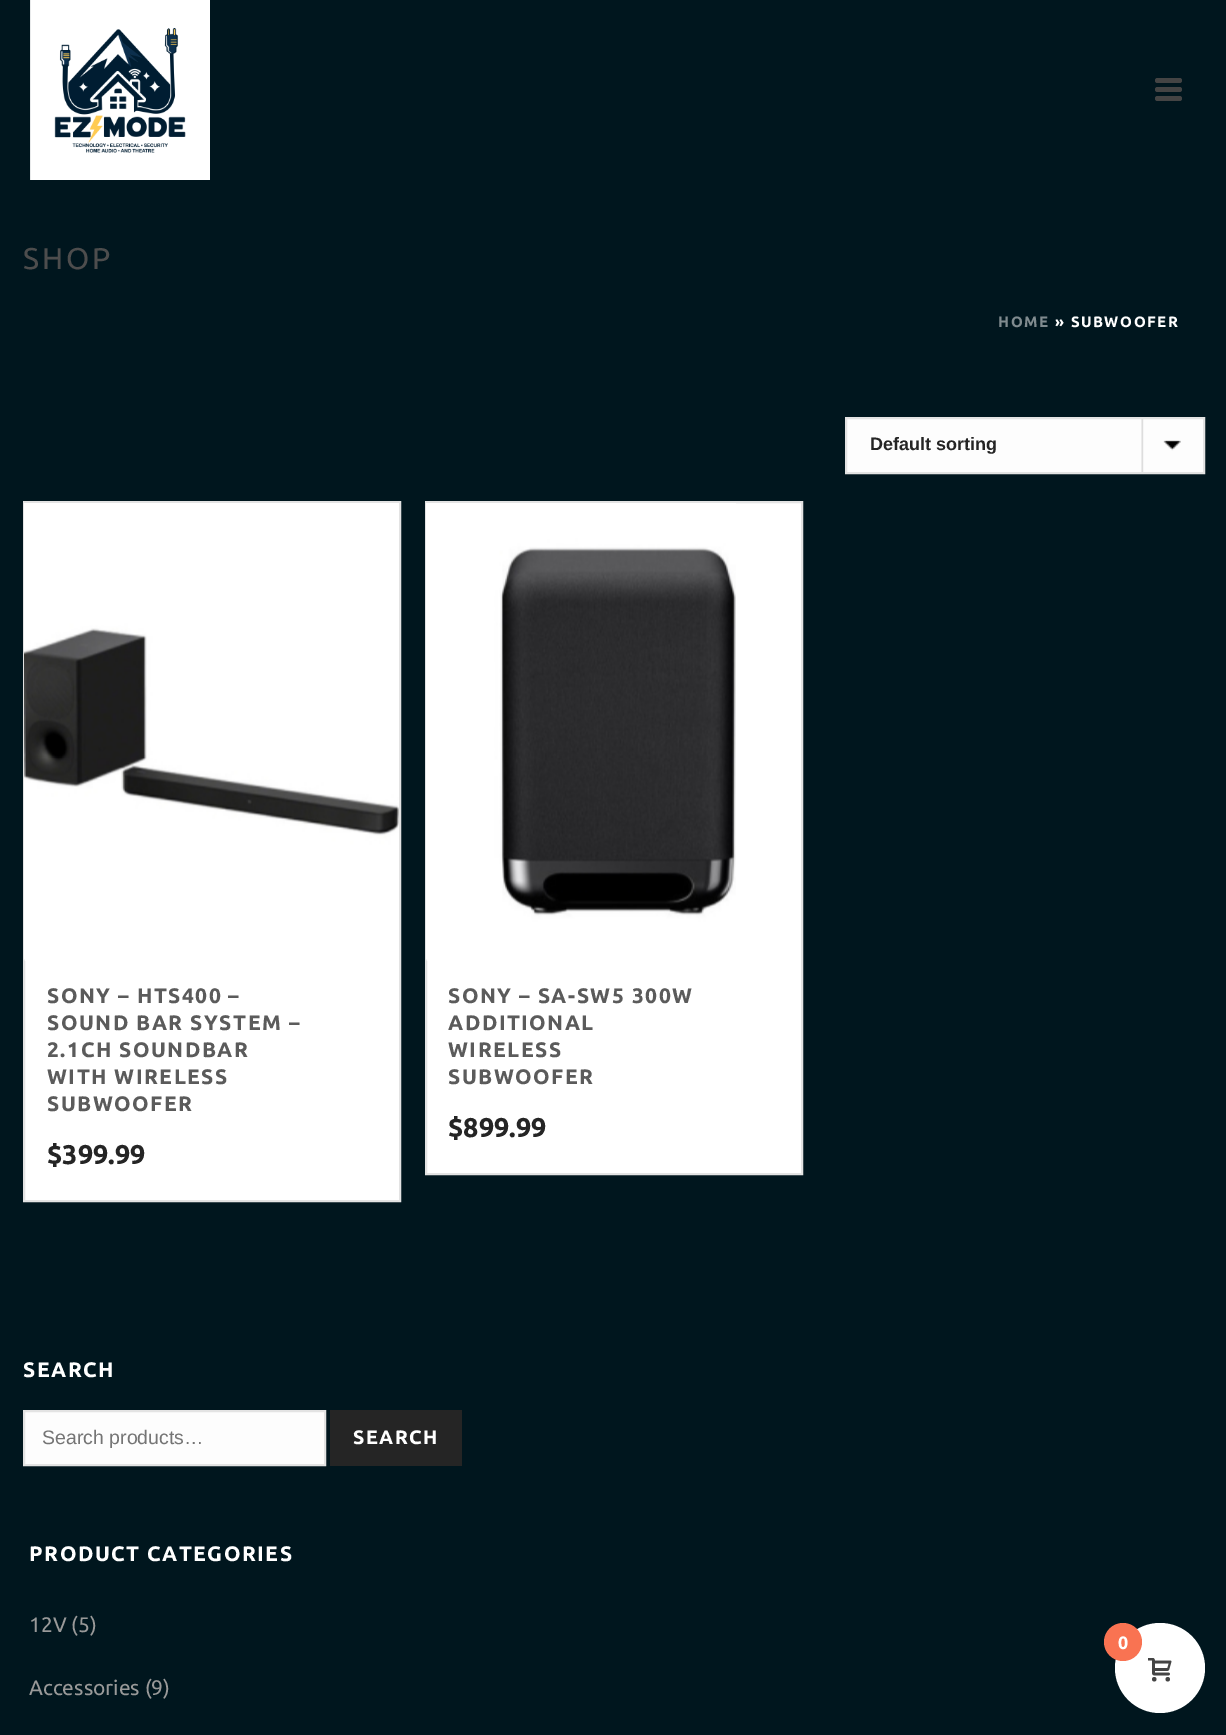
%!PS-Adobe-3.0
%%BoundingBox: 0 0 1226 1735
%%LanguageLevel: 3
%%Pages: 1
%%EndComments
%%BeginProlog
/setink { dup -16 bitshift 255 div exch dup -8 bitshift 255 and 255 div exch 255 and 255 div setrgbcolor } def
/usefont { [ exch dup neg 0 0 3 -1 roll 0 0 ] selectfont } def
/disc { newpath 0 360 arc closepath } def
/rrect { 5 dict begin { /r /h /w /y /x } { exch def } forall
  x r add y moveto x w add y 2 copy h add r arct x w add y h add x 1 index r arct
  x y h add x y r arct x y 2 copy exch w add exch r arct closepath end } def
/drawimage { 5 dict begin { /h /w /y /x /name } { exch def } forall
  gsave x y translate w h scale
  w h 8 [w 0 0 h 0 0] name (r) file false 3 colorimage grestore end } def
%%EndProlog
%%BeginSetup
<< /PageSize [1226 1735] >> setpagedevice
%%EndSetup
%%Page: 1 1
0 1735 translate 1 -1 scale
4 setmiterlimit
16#00161E setink
0 0 1226 1735 rectfill
(img1.raw) 30 0 180 180 drawimage
16#444444 setink
1155 78 27 5 2.5 rrect fill
1155 87 27 5 2.5 rrect fill
1155 96 27 5 2.5 rrect fill
/Ubuntu-Regular 30 usefont
16#4D4D4D setink
23 269 moveto 3 0 (SHOP) ashow
/Ubuntu-Bold 15 usefont
16#808B8F setink
998 327 moveto 1.5 0 (HOME) ashow
16#FFFFFF setink
1055 327 moveto 1.5 0 (» SUBWOOFER) ashow
16#FDFDFD setink
847 419 356 53 rectfill
(img2.raw) 1141 419 40 53 drawimage
16#E3E3E3 setink
2 setlinewidth
846 418 358 55 rectstroke
/LiberationSans-Bold 18 usefont
16#252525 setink
870 450 moveto (Default sorting) show
16#FFFFFF setink
25 959 374 241 rectfill
16#E3E3E3 setink
24 502 376 699 rectstroke
(img3.raw) 24 503 375 458 drawimage
/Ubuntu-Bold 21 usefont
16#5B5B5B setink
47 1003 moveto 1.5 0 (SONY – HTS400 –) ashow
47 1030 moveto 1.5 0 (SOUND BAR SYSTEM –) ashow
47 1057 moveto 1.5 0 (2.1CH SOUNDBAR) ashow
47 1084 moveto 1.5 0 (WITH WIRELESS) ashow
47 1111 moveto 1.5 0 (SUBWOOFER) ashow
/Ubuntu-Bold 27 usefont
16#252525 setink
47 1164 moveto ($399.99) show
16#FFFFFF setink
426 502 moveto 802 502 lineto 802 1174 lineto 426 1174 lineto closepath gsave fill grestore
16#E3E3E3 setink
stroke
(img4.raw) 426 503 310 458 drawimage
/Ubuntu-Bold 21 usefont
16#5B5B5B setink
448 1003 moveto 1.5 0 (SONY – SA-SW5 300W) ashow
448 1030 moveto 1.5 0 (ADDITIONAL) ashow
448 1057 moveto 1.5 0 (WIRELESS) ashow
448 1084 moveto 1.5 0 (SUBWOOFER) ashow
/Ubuntu-Bold 27 usefont
16#252525 setink
448 1137 moveto ($899.99) show
/Ubuntu-Bold 21 usefont
16#FFFFFF setink
23 1377 moveto 1.5 0 (SEARCH) ashow
16#FDFDFD setink
24 1411 moveto 325 1411 lineto 325 1465 lineto 24 1465 lineto closepath gsave fill grestore
16#E3E3E3 setink
stroke
/LiberationSans-Regular 19.5 usefont
16#757575 setink
42 1444 moveto (Search products…) show
16#252525 setink
330 1410 132 56 rectfill
/Ubuntu-Bold 19.5 usefont
16#FFFFFF setink
353 1444 moveto 1.5 0 (SEARCH) ashow
/Ubuntu-Bold 21 usefont
29 1561 moveto 1.5 0 (PRODUCT CATEGORIES) ashow
/Ubuntu-Regular 21 usefont
16#999999 setink
29 1632 moveto (12V \(5\)) show
29 1695 moveto (Accessories \(9\)) show
16#FFFFFF setink
1160 1668 45 disc fill
16#F97352 setink
1123 1642 19 disc fill
/Ubuntu-Bold 18 usefont
16#FFFFFF setink
1118 1649 moveto (0) show
(img5.raw) 1148 1658 24 24 drawimage
showpage
%%EOF
